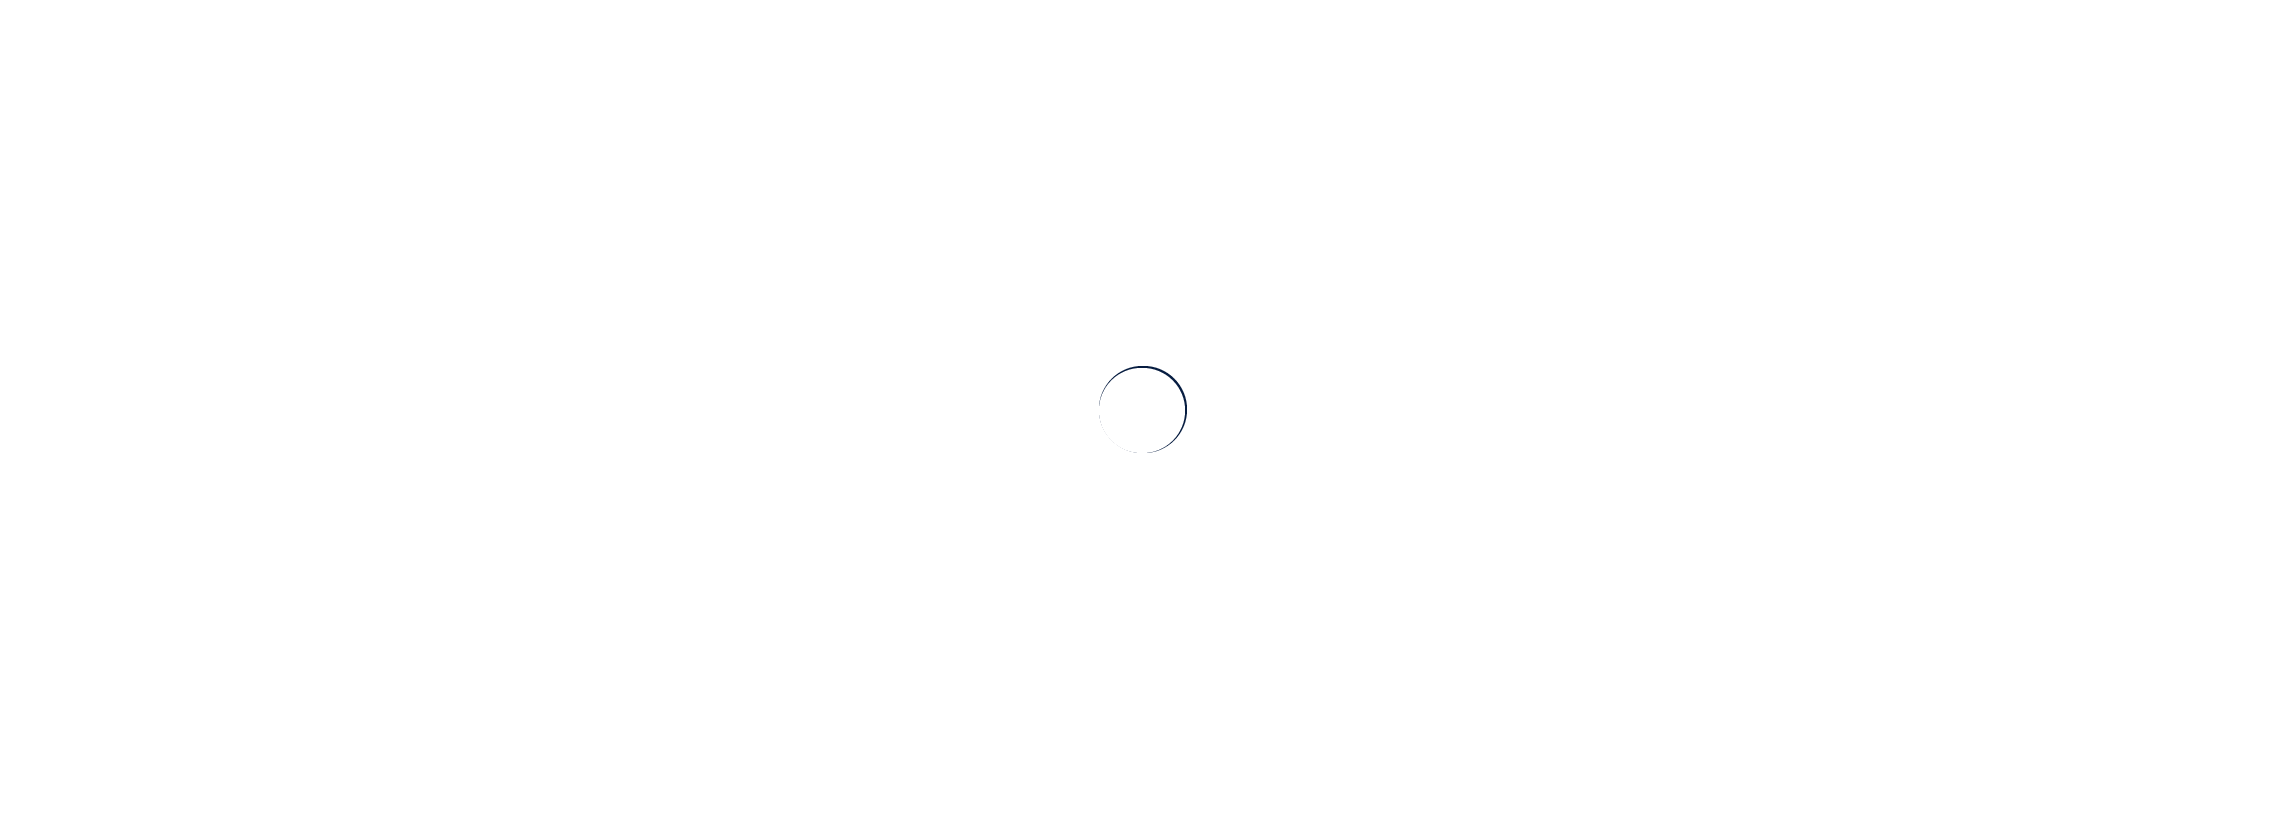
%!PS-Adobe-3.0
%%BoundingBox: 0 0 2283 817
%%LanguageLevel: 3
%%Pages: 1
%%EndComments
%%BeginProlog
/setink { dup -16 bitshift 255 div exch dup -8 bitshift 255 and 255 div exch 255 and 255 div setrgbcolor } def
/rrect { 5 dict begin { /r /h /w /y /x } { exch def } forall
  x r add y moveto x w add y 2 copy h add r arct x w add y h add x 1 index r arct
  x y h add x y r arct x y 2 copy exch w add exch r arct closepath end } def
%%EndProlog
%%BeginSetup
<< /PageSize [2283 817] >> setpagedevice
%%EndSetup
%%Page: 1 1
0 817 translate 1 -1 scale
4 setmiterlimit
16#FFFFFF setink
0 0 2283 817 rectfill
16#071D41 setink
1099 366 88 87 43.5 rrect fill
16#FFFFFF setink
1099 368 86 85 42.5 rrect fill
showpage
%%EOF
